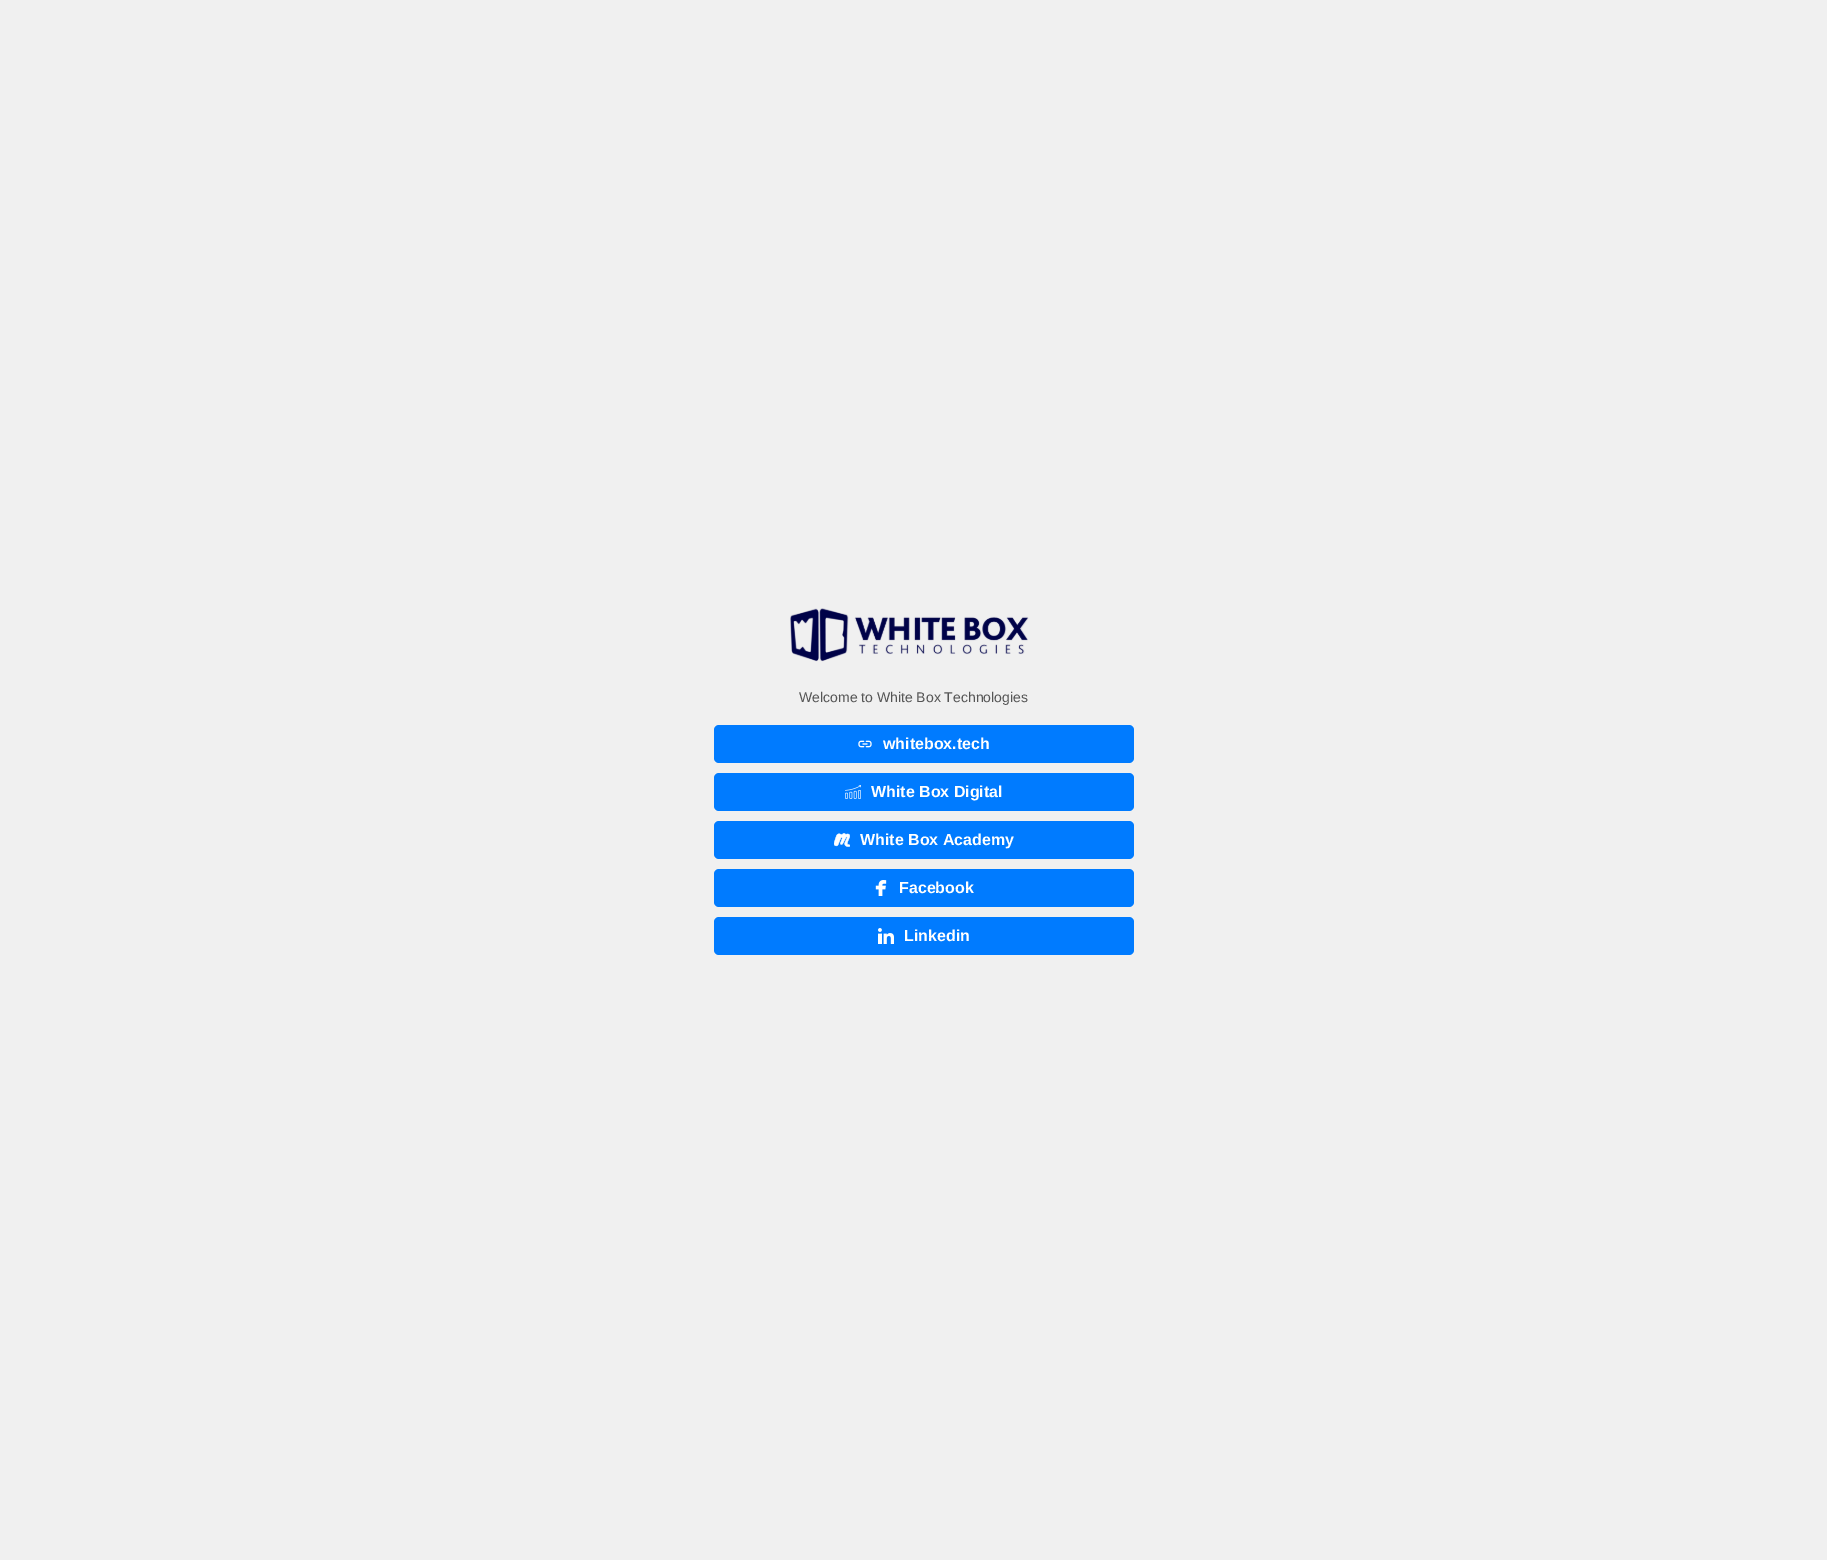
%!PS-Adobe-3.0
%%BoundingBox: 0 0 1827 1560
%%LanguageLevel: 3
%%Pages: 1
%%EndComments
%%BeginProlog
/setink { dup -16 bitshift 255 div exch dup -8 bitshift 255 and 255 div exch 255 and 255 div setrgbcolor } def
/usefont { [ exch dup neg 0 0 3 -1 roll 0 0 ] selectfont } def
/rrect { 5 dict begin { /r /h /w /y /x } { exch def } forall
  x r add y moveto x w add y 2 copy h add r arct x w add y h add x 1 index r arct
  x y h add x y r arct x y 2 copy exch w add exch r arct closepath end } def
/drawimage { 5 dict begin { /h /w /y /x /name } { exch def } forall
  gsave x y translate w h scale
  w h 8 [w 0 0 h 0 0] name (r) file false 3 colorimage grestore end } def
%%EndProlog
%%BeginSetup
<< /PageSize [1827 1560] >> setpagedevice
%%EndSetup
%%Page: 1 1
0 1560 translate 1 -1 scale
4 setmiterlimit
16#F0F0F0 setink
0 0 1827 1560 rectfill
(img1.raw) 790 608 239 54 drawimage
/LiberationSans-Regular 14 usefont
16#555555 setink
799 702 moveto (Welcome to White Box Technologies) show
16#007BFF setink
714 725 420 38 5 rrect fill
(img2.raw) 858 740 14 8 drawimage
/LiberationSans-Bold 16 usefont
16#FFFFFF setink
883 749 moveto (whitebox.tech) show
16#007BFF setink
714 773 420 38 5 rrect fill
(img3.raw) 845 785 16 14 drawimage
16#FFFFFF setink
871 797 moveto (White Box Digital) show
16#007BFF setink
714 821 420 38 5 rrect fill
(img4.raw) 834 833 16 14 drawimage
16#FFFFFF setink
860 845 moveto (White Box Academy) show
16#007BFF setink
714 869 420 38 5 rrect fill
(img5.raw) 875 880 12 16 drawimage
16#FFFFFF setink
899 893 moveto (Facebook) show
16#007BFF setink
714 917 420 38 5 rrect fill
(img6.raw) 878 928 16 16 drawimage
16#FFFFFF setink
904 941 moveto (Linkedin) show
showpage
%%EOF
